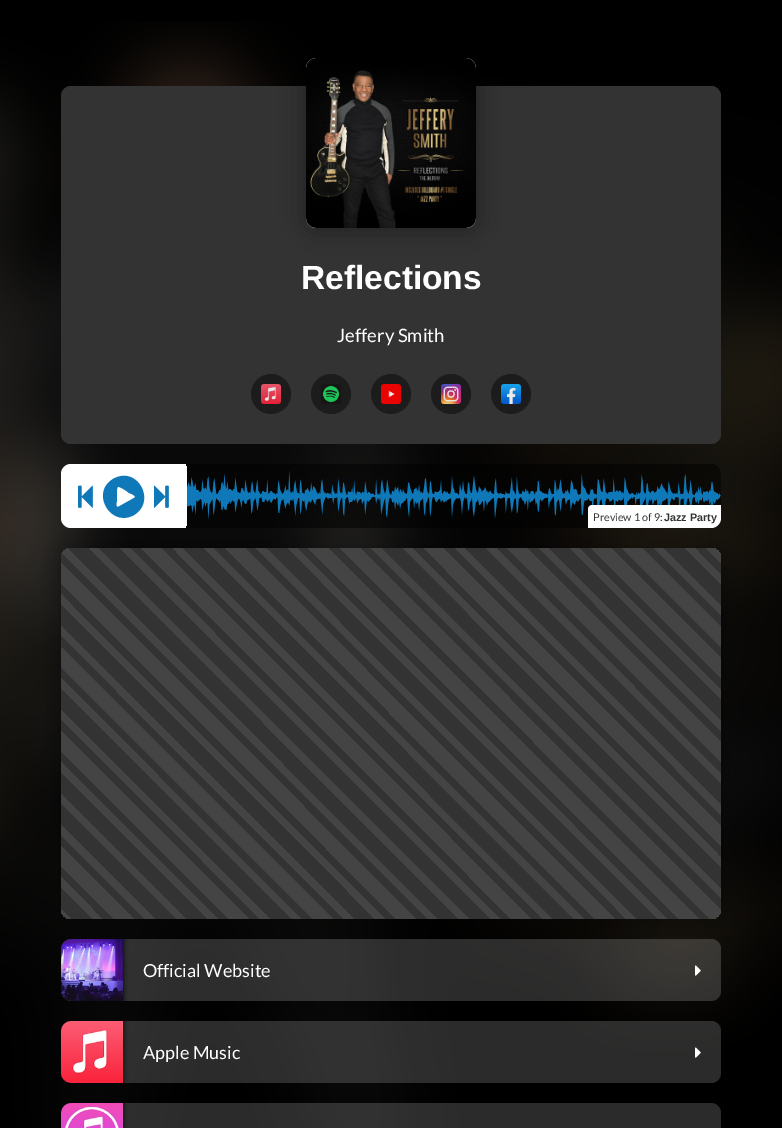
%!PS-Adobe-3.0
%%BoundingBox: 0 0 782 1128
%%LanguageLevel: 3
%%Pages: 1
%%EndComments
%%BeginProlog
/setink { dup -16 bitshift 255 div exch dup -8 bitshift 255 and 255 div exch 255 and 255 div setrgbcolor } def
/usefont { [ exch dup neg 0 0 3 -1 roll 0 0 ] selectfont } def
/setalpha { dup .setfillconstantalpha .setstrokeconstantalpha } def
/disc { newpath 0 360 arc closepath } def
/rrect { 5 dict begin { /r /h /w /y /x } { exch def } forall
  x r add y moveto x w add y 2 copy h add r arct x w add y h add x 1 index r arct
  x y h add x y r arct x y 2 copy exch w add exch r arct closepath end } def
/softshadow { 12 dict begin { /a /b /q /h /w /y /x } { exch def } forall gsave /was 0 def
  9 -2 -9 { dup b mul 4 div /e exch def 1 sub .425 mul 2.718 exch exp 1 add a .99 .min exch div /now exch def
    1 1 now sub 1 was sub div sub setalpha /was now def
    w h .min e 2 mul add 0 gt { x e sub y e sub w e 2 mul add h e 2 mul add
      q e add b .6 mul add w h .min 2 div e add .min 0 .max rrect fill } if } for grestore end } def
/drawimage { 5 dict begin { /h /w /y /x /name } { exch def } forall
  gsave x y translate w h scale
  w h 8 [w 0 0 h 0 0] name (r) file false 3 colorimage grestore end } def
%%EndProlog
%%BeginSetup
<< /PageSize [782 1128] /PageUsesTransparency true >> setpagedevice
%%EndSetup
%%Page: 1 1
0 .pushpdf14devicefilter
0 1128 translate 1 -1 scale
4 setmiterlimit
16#000000 setink
0 0 782 1128 rectfill
(img1.raw) 0 21 782 1107 drawimage
16#333333 setink
61 86 660 358 10 rrect fill
16#000000 setink
306 58 170 170 10 12.5 0.35 softshadow
16#CCCCCC setink
306 58 170 170 10 rrect fill
(img2.raw) 306 58 170 170 drawimage
/LiberationSans-Bold 33.5 usefont
16#FFFFFF setink
301 289 moveto (Reflections) show
/Lato-Regular 18.5 usefont
337 342 moveto (Jeffery Smith) show
16#1C1C1C setink
271 394 20 disc fill
(img3.raw) 261 384 20 20 drawimage
331 394 20 disc fill
(img4.raw) 321 384 20 20 drawimage
391 394 20 disc fill
(img5.raw) 381 384 20 20 drawimage
451 394 20 disc fill
(img6.raw) 441 384 20 20 drawimage
511 394 20 disc fill
(img7.raw) 501 384 20 20 drawimage
gsave
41 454 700 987 rectclip
16#000000 setink
61 548 660 371 10 12.5 0.35 softshadow
grestore
gsave 61 548 660 371 10 rrect clip newpath
<< /ShadingType 2 /ColorSpace /DeviceRGB /Coords [133 991 657 468] /Extend [true true] /Function << /FunctionType 3 /Domain [0 1] /Functions [<< /FunctionType 2 /Domain [0 1] /C0 [0.267 0.267 0.267] /C1 [0.267 0.267 0.267] /N 1 >> << /FunctionType 2 /Domain [0 1] /C0 [0.2 0.2 0.2] /C1 [0.2 0.2 0.2] /N 1 >> << /FunctionType 2 /Domain [0 1] /C0 [0.267 0.267 0.267] /C1 [0.267 0.267 0.267] /N 1 >> << /FunctionType 2 /Domain [0 1] /C0 [0.2 0.2 0.2] /C1 [0.2 0.2 0.2] /N 1 >> << /FunctionType 2 /Domain [0 1] /C0 [0.267 0.267 0.267] /C1 [0.267 0.267 0.267] /N 1 >> << /FunctionType 2 /Domain [0 1] /C0 [0.2 0.2 0.2] /C1 [0.2 0.2 0.2] /N 1 >> << /FunctionType 2 /Domain [0 1] /C0 [0.267 0.267 0.267] /C1 [0.267 0.267 0.267] /N 1 >> << /FunctionType 2 /Domain [0 1] /C0 [0.2 0.2 0.2] /C1 [0.2 0.2 0.2] /N 1 >> << /FunctionType 2 /Domain [0 1] /C0 [0.267 0.267 0.267] /C1 [0.267 0.267 0.267] /N 1 >> << /FunctionType 2 /Domain [0 1] /C0 [0.2 0.2 0.2] /C1 [0.2 0.2 0.2] /N 1 >> << /FunctionType 2 /Domain [0 1] /C0 [0.267 0.267 0.267] /C1 [0.267 0.267 0.267] /N 1 >> << /FunctionType 2 /Domain [0 1] /C0 [0.2 0.2 0.2] /C1 [0.2 0.2 0.2] /N 1 >> << /FunctionType 2 /Domain [0 1] /C0 [0.267 0.267 0.267] /C1 [0.267 0.267 0.267] /N 1 >> << /FunctionType 2 /Domain [0 1] /C0 [0.2 0.2 0.2] /C1 [0.2 0.2 0.2] /N 1 >> << /FunctionType 2 /Domain [0 1] /C0 [0.267 0.267 0.267] /C1 [0.267 0.267 0.267] /N 1 >> << /FunctionType 2 /Domain [0 1] /C0 [0.2 0.2 0.2] /C1 [0.2 0.2 0.2] /N 1 >> << /FunctionType 2 /Domain [0 1] /C0 [0.267 0.267 0.267] /C1 [0.267 0.267 0.267] /N 1 >> << /FunctionType 2 /Domain [0 1] /C0 [0.2 0.2 0.2] /C1 [0.2 0.2 0.2] /N 1 >> << /FunctionType 2 /Domain [0 1] /C0 [0.267 0.267 0.267] /C1 [0.267 0.267 0.267] /N 1 >> << /FunctionType 2 /Domain [0 1] /C0 [0.2 0.2 0.2] /C1 [0.2 0.2 0.2] /N 1 >> << /FunctionType 2 /Domain [0 1] /C0 [0.267 0.267 0.267] /C1 [0.267 0.267 0.267] /N 1 >> << /FunctionType 2 /Domain [0 1] /C0 [0.2 0.2 0.2] /C1 [0.2 0.2 0.2] /N 1 >> << /FunctionType 2 /Domain [0 1] /C0 [0.267 0.267 0.267] /C1 [0.267 0.267 0.267] /N 1 >> << /FunctionType 2 /Domain [0 1] /C0 [0.2 0.2 0.2] /C1 [0.2 0.2 0.2] /N 1 >> << /FunctionType 2 /Domain [0 1] /C0 [0.267 0.267 0.267] /C1 [0.267 0.267 0.267] /N 1 >> << /FunctionType 2 /Domain [0 1] /C0 [0.2 0.2 0.2] /C1 [0.2 0.2 0.2] /N 1 >> << /FunctionType 2 /Domain [0 1] /C0 [0.267 0.267 0.267] /C1 [0.267 0.267 0.267] /N 1 >> << /FunctionType 2 /Domain [0 1] /C0 [0.2 0.2 0.2] /C1 [0.2 0.2 0.2] /N 1 >> << /FunctionType 2 /Domain [0 1] /C0 [0.267 0.267 0.267] /C1 [0.267 0.267 0.267] /N 1 >> << /FunctionType 2 /Domain [0 1] /C0 [0.2 0.2 0.2] /C1 [0.2 0.2 0.2] /N 1 >> << /FunctionType 2 /Domain [0 1] /C0 [0.267 0.267 0.267] /C1 [0.267 0.267 0.267] /N 1 >> << /FunctionType 2 /Domain [0 1] /C0 [0.2 0.2 0.2] /C1 [0.2 0.2 0.2] /N 1 >> << /FunctionType 2 /Domain [0 1] /C0 [0.267 0.267 0.267] /C1 [0.267 0.267 0.267] /N 1 >> << /FunctionType 2 /Domain [0 1] /C0 [0.2 0.2 0.2] /C1 [0.2 0.2 0.2] /N 1 >> << /FunctionType 2 /Domain [0 1] /C0 [0.267 0.267 0.267] /C1 [0.267 0.267 0.267] /N 1 >> << /FunctionType 2 /Domain [0 1] /C0 [0.2 0.2 0.2] /C1 [0.2 0.2 0.2] /N 1 >> << /FunctionType 2 /Domain [0 1] /C0 [0.267 0.267 0.267] /C1 [0.267 0.267 0.267] /N 1 >> << /FunctionType 2 /Domain [0 1] /C0 [0.2 0.2 0.2] /C1 [0.2 0.2 0.2] /N 1 >> << /FunctionType 2 /Domain [0 1] /C0 [0.267 0.267 0.267] /C1 [0.267 0.267 0.267] /N 1 >> << /FunctionType 2 /Domain [0 1] /C0 [0.2 0.2 0.2] /C1 [0.2 0.2 0.2] /N 1 >> << /FunctionType 2 /Domain [0 1] /C0 [0.267 0.267 0.267] /C1 [0.267 0.267 0.267] /N 1 >> << /FunctionType 2 /Domain [0 1] /C0 [0.2 0.2 0.2] /C1 [0.2 0.2 0.2] /N 1 >> << /FunctionType 2 /Domain [0 1] /C0 [0.267 0.267 0.267] /C1 [0.267 0.267 0.267] /N 1 >> << /FunctionType 2 /Domain [0 1] /C0 [0.2 0.2 0.2] /C1 [0.2 0.2 0.2] /N 1 >> << /FunctionType 2 /Domain [0 1] /C0 [0.267 0.267 0.267] /C1 [0.267 0.267 0.267] /N 1 >> << /FunctionType 2 /Domain [0 1] /C0 [0.2 0.2 0.2] /C1 [0.2 0.2 0.2] /N 1 >> << /FunctionType 2 /Domain [0 1] /C0 [0.267 0.267 0.267] /C1 [0.267 0.267 0.267] /N 1 >> << /FunctionType 2 /Domain [0 1] /C0 [0.2 0.2 0.2] /C1 [0.2 0.2 0.2] /N 1 >> << /FunctionType 2 /Domain [0 1] /C0 [0.267 0.267 0.267] /C1 [0.267 0.267 0.267] /N 1 >> << /FunctionType 2 /Domain [0 1] /C0 [0.2 0.2 0.2] /C1 [0.2 0.2 0.2] /N 1 >> << /FunctionType 2 /Domain [0 1] /C0 [0.267 0.267 0.267] /C1 [0.267 0.267 0.267] /N 1 >> << /FunctionType 2 /Domain [0 1] /C0 [0.2 0.2 0.2] /C1 [0.2 0.2 0.2] /N 1 >> << /FunctionType 2 /Domain [0 1] /C0 [0.267 0.267 0.267] /C1 [0.267 0.267 0.267] /N 1 >> << /FunctionType 2 /Domain [0 1] /C0 [0.2 0.2 0.2] /C1 [0.2 0.2 0.2] /N 1 >> << /FunctionType 2 /Domain [0 1] /C0 [0.267 0.267 0.267] /C1 [0.267 0.267 0.267] /N 1 >> << /FunctionType 2 /Domain [0 1] /C0 [0.2 0.2 0.2] /C1 [0.2 0.2 0.2] /N 1 >> << /FunctionType 2 /Domain [0 1] /C0 [0.267 0.267 0.267] /C1 [0.267 0.267 0.267] /N 1 >> << /FunctionType 2 /Domain [0 1] /C0 [0.2 0.2 0.2] /C1 [0.2 0.2 0.2] /N 1 >> << /FunctionType 2 /Domain [0 1] /C0 [0.267 0.267 0.267] /C1 [0.267 0.267 0.267] /N 1 >> << /FunctionType 2 /Domain [0 1] /C0 [0.2 0.2 0.2] /C1 [0.2 0.2 0.2] /N 1 >> << /FunctionType 2 /Domain [0 1] /C0 [0.267 0.267 0.267] /C1 [0.267 0.267 0.267] /N 1 >> << /FunctionType 2 /Domain [0 1] /C0 [0.2 0.2 0.2] /C1 [0.2 0.2 0.2] /N 1 >> << /FunctionType 2 /Domain [0 1] /C0 [0.267 0.267 0.267] /C1 [0.267 0.267 0.267] /N 1 >> << /FunctionType 2 /Domain [0 1] /C0 [0.2 0.2 0.2] /C1 [0.2 0.2 0.2] /N 1 >> << /FunctionType 2 /Domain [0 1] /C0 [0.267 0.267 0.267] /C1 [0.267 0.267 0.267] /N 1 >> << /FunctionType 2 /Domain [0 1] /C0 [0.2 0.2 0.2] /C1 [0.2 0.2 0.2] /N 1 >> << /FunctionType 2 /Domain [0 1] /C0 [0.267 0.267 0.267] /C1 [0.267 0.267 0.267] /N 1 >> << /FunctionType 2 /Domain [0 1] /C0 [0.2 0.2 0.2] /C1 [0.2 0.2 0.2] /N 1 >> << /FunctionType 2 /Domain [0 1] /C0 [0.267 0.267 0.267] /C1 [0.267 0.267 0.267] /N 1 >> << /FunctionType 2 /Domain [0 1] /C0 [0.2 0.2 0.2] /C1 [0.2 0.2 0.2] /N 1 >> << /FunctionType 2 /Domain [0 1] /C0 [0.267 0.267 0.267] /C1 [0.267 0.267 0.267] /N 1 >> << /FunctionType 2 /Domain [0 1] /C0 [0.2 0.2 0.2] /C1 [0.2 0.2 0.2] /N 1 >> << /FunctionType 2 /Domain [0 1] /C0 [0.267 0.267 0.267] /C1 [0.267 0.267 0.267] /N 1 >> << /FunctionType 2 /Domain [0 1] /C0 [0.2 0.2 0.2] /C1 [0.2 0.2 0.2] /N 1 >>] /Bounds [0.01 0.03 0.04 0.05 0.07 0.08 0.09 0.11 0.12 0.14 0.15 0.16 0.18 0.19 0.2 0.22 0.23 0.24 0.26 0.27 0.28 0.3 0.31 0.32 0.34 0.35 0.36 0.38 0.39 0.41 0.42 0.43 0.45 0.46 0.47 0.49 0.5 0.51 0.53 0.54 0.55 0.57 0.58 0.59 0.61 0.62 0.64 0.65 0.66 0.68 0.69 0.7 0.72 0.73 0.74 0.76 0.77 0.78 0.8 0.81 0.82 0.84 0.85 0.86 0.88 0.89 0.91 0.92 0.93 0.95 0.96 0.97 0.99] /Encode [0 1 0 1 0 1 0 1 0 1 0 1 0 1 0 1 0 1 0 1 0 1 0 1 0 1 0 1 0 1 0 1 0 1 0 1 0 1 0 1 0 1 0 1 0 1 0 1 0 1 0 1 0 1 0 1 0 1 0 1 0 1 0 1 0 1 0 1 0 1 0 1 0 1 0 1 0 1 0 1 0 1 0 1 0 1 0 1 0 1 0 1 0 1 0 1 0 1 0 1 0 1 0 1 0 1 0 1 0 1 0 1 0 1 0 1 0 1 0 1 0 1 0 1 0 1 0 1 0 1 0 1 0 1 0 1 0 1 0 1 0 1 0 1 0 1 0 1] >> >> shfill grestore
16#FFFFFF setink
71 464 moveto 186 464 lineto 186 528 lineto 71 528 lineto 65.5 528 61 523.5 61 518 curveto 61 474 lineto 61 468.5 65.5 464 71 464 curveto closepath fill
(img8.raw) 78 485 15 23 drawimage
16#0F78B8 setink
113 479 moveto 137 465 157 501 134 515 curveto 111 528 90 493 113 479 curveto closepath 134 498 moveto 138 496 129 493 129 493 curveto 127 491 119 486 118 487 curveto 116 488 117 498 117 500 curveto 117 501 115 507 118 507 curveto closepath fill
(img9.raw) 154 485 15 23 drawimage
0.5 setalpha
16#000000 setink
186 464 moveto 711 464 lineto 716.5 464 721 468.5 721 474 curveto 721 518 lineto 721 523.5 716.5 528 711 528 curveto 186 528 lineto closepath fill
1 setalpha
16#FFFFFF setink
186 466 1 60 rectfill
(img10.raw) 187 470 534 50 drawimage
592 505 moveto 721 505 lineto 721 518 lineto 721 523.5 716.5 528 711 528 curveto 588 528 lineto 588 509 lineto 588 507 590 505 592 505 curveto closepath fill
/Lato-Regular 10.75 usefont
16#333333 setink
593 521 moveto (Preview 1 of 9:) show
/LiberationSans-Bold 10.75 usefont
664 521 moveto (Jazz Party) show
0.17 setalpha
16#FFFFFF setink
61 939 660 62 10 rrect fill
gsave
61 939 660 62 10 rrect clip newpath
1 setalpha
16#000000 setink
61 939 62 62 0 2.5 1 softshadow
grestore
1 setalpha
(img11.raw) 61 939 62 62 drawimage
/Lato-Regular 18 usefont
143 977 moveto (Official Website) show
(img12.raw) 695 965 6 11 drawimage
0.17 setalpha
61 1021 660 62 10 rrect fill
gsave
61 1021 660 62 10 rrect clip newpath
1 setalpha
16#000000 setink
61 1021 62 62 0 2.5 1 softshadow
grestore
1 setalpha
(img13.raw) 61 1021 62 62 drawimage
143 1059 moveto (Apple Music) show
(img14.raw) 695 1047 6 11 drawimage
0.17 setalpha
61 1103 660 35 10 rrect fill
gsave
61 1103 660 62 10 rrect clip newpath
1 setalpha
16#000000 setink
61 1103 62 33 0 2.5 1 softshadow
grestore
1 setalpha
(img15.raw) 61 1103 62 25 drawimage
.poppdf14devicefilter showpage
%%EOF
